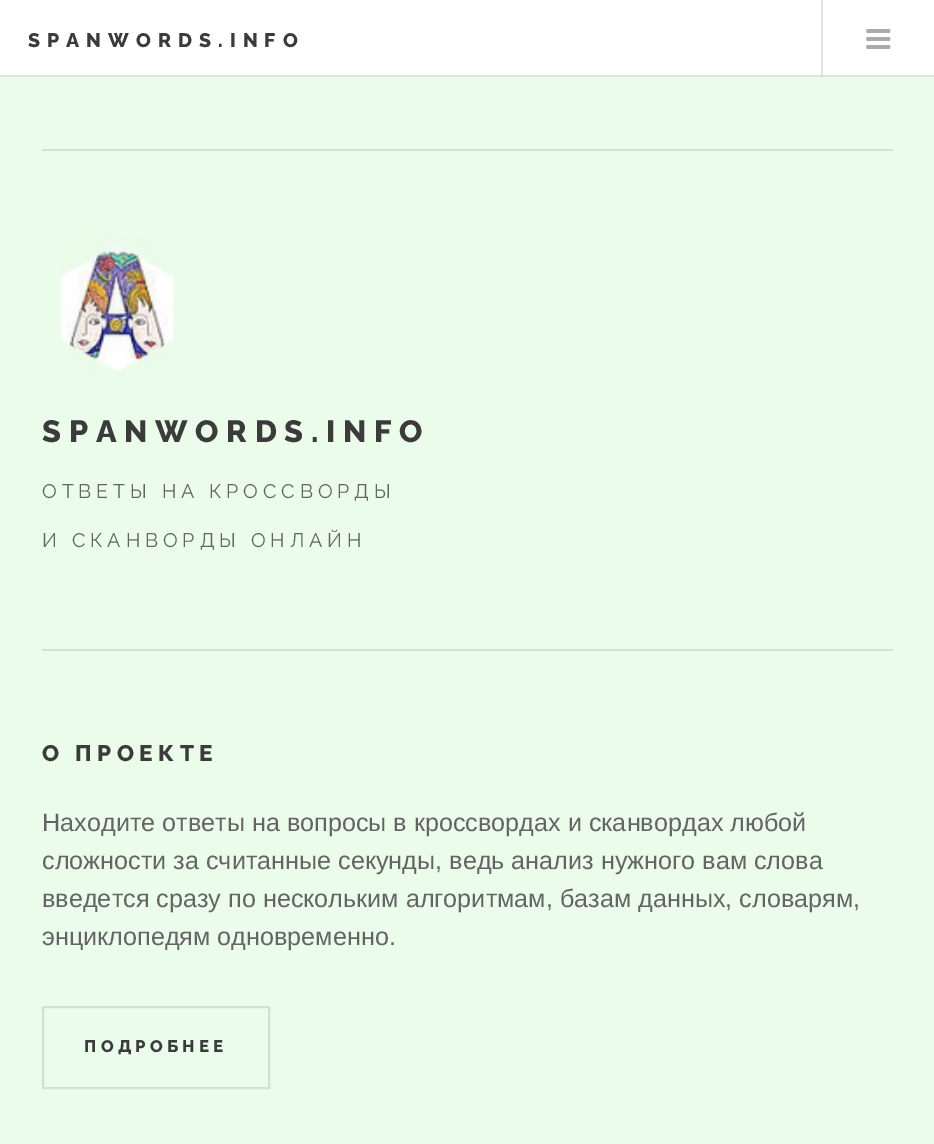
%!PS-Adobe-3.0
%%BoundingBox: 0 0 934 1144
%%LanguageLevel: 3
%%Pages: 1
%%EndComments
%%BeginProlog
/setink { dup -16 bitshift 255 div exch dup -8 bitshift 255 and 255 div exch 255 and 255 div setrgbcolor } def
/usefont { [ exch dup neg 0 0 3 -1 roll 0 0 ] selectfont } def
/drawimage { 5 dict begin { /h /w /y /x /name } { exch def } forall
  gsave x y translate w h scale
  w h 8 [w 0 0 h 0 0] name (r) file false 3 colorimage grestore end } def
%%EndProlog
%%BeginSetup
<< /PageSize [934 1144] >> setpagedevice
%%EndSetup
%%Page: 1 1
0 1144 translate 1 -1 scale
4 setmiterlimit
16#EBFCEB setink
0 0 934 1144 rectfill
[
    [0 0 934 75 16#FFFFFF]
    [821 0 2 77 16#E3E3E3]
    [0 75 934 2 16#E3E3E3]
    [821 75 2 2 16#CFCFCF]
] { aload pop setink rectfill } forall
/Raleway-ExtraBold 19.6 usefont
16#3C3B3B setink
28 47 moveto 7 0 (SPANWORDS.INFO) ashow
(img1.raw) 866 29 25 20 drawimage
16#D5E0D5 setink
42 149 851 2 rectfill
(img2.raw) 60 235 115 139 drawimage
/Raleway-ExtraBold 30.75 usefont
16#3C3B3B setink
42 442 moveto 7.75 0 (SPANWORDS.INFO) ashow
/Raleway-Regular 19.6 usefont
16#646464 setink
42 498 moveto 4.9 0 (ОТВЕТЫ НА КРОССВОРДЫ) ashow
42 547 moveto 4.9 0 (И СКАНВОРДЫ ОНЛАЙН) ashow
16#D5E0D5 setink
42 649 851 2 rectfill
/Raleway-ExtraBold 22.5 usefont
16#3C3B3B setink
42 761 moveto 5.5 0 (О ПРОЕКТЕ) ashow
/LiberationSans-Regular 25.2 usefont
16#646464 setink
[
    [(Находите ответы на вопросы в кроссвордах и сканвордах любой) 42 831]
    [(сложности за считанные секунды, ведь анализ нужного вам слова) 42 869]
    [(введется сразу по нескольким алгоритмам, базам данных, словарям,) 42 907]
    [(энциклопедям одновременно.) 42 945]
] { aload pop moveto show } forall
16#D5E0D5 setink
2 setlinewidth
43 1007 226 81 rectstroke
/Raleway-ExtraBold 16.75 usefont
16#3C3B3B setink
84 1052 moveto 4.25 0 (ПОДРОБНЕЕ) ashow
showpage
%%EOF
